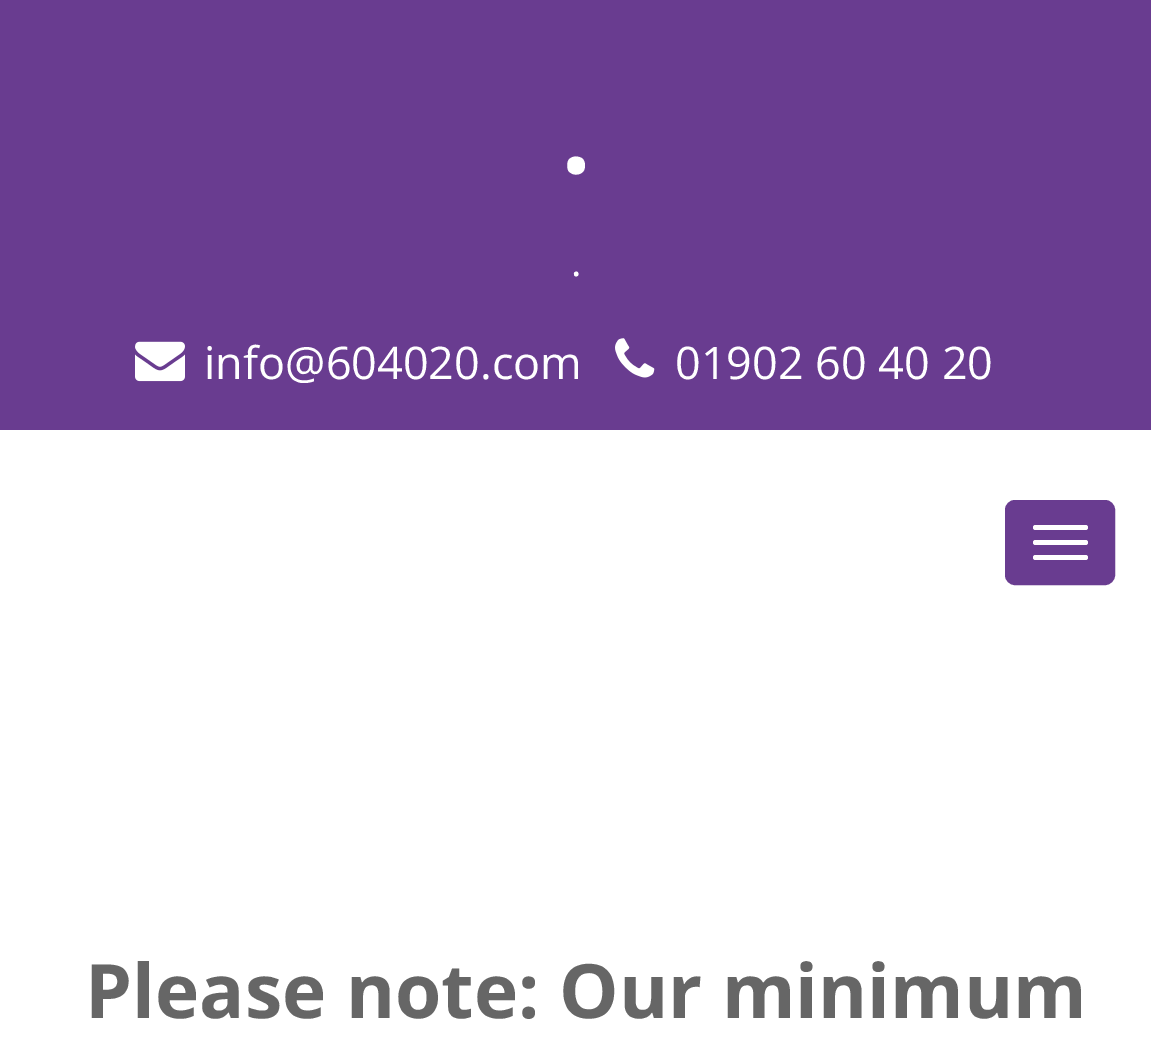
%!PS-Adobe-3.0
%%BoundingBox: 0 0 1151 1037
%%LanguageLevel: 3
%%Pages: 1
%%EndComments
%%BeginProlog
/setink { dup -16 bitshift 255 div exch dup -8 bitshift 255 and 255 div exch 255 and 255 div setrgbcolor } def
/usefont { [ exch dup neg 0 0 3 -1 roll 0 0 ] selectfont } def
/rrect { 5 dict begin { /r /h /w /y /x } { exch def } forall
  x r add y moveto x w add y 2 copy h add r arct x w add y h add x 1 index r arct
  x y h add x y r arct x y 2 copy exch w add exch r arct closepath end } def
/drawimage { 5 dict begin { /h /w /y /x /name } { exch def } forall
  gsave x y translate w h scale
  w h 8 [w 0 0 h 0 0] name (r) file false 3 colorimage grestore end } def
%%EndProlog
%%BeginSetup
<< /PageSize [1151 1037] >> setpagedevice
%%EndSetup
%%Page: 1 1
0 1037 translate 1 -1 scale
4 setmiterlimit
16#FFFFFF setink
0 0 1151 1037 rectfill
16#693C90 setink
0 0 1151 430 rectfill
/OpenSans-SemiBold 125 usefont
16#FFFFFF setink
559 173 moveto (.) show
/OpenSans-Regular 40 usefont
571 276 moveto (.) show
(img1.raw) 135 341 50 41 drawimage
/OpenSans-Regular 45 usefont
204 379 moveto (info@604020.com) show
(img2.raw) 615 338 40 40 drawimage
675 379 moveto (01902 60 40 20) show
16#693C90 setink
1006.5 501.5 107 82 8.5 rrect gsave fill grestore
3 setlinewidth
stroke
16#FFFFFF setink
1033 525 55 5 2.5 rrect fill
1033 540 55 5 2.5 rrect fill
1033 555 55 5 2.5 rrect fill
/OpenSans-Bold 75 usefont
16#666666 setink
85 1018 moveto (Please note: Our minimum) show
showpage
%%EOF
